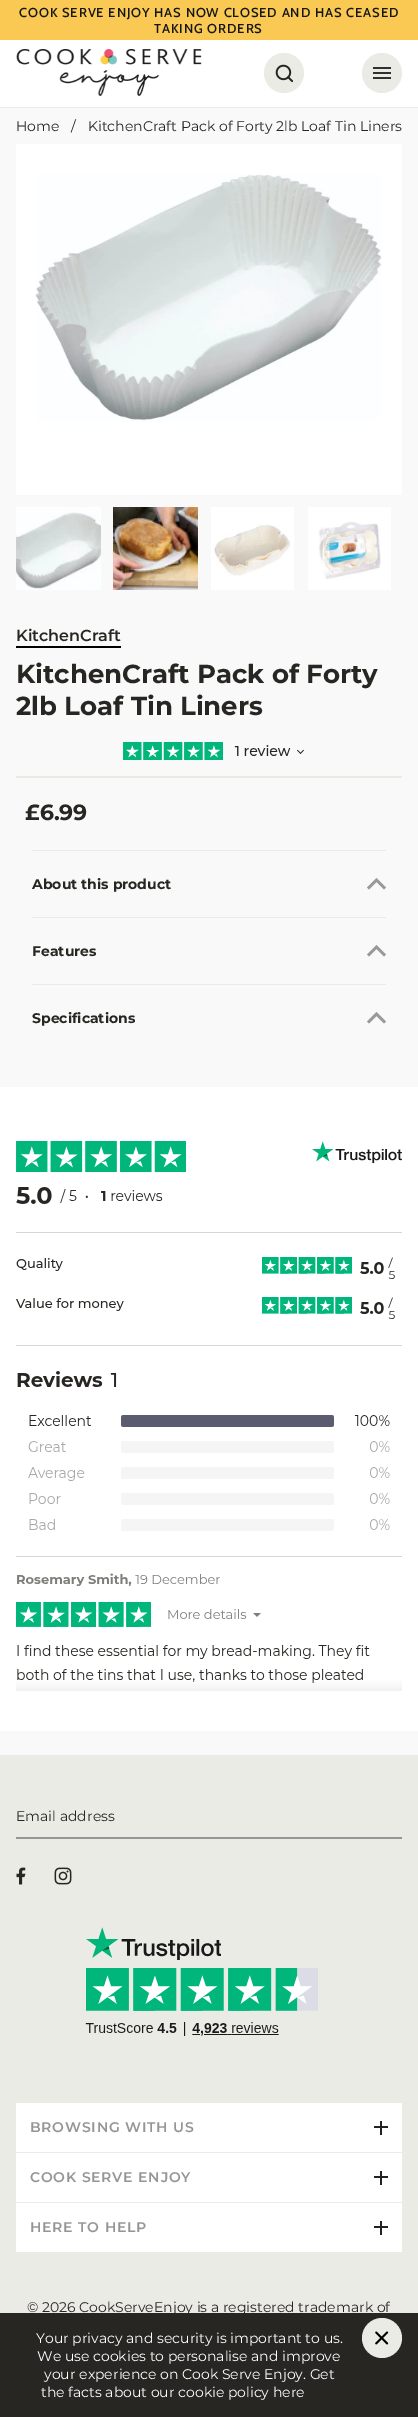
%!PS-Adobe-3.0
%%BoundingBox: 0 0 418 2417
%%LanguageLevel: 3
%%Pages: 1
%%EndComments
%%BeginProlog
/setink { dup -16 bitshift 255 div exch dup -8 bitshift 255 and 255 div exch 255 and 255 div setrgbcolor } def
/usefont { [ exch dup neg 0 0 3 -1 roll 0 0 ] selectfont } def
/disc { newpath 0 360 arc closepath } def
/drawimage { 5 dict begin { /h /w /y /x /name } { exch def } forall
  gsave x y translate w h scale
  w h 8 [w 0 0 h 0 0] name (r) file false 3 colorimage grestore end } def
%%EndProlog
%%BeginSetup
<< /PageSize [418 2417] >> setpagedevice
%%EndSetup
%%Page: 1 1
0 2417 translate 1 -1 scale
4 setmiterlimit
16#FFFFFF setink
0 0 418 2417 rectfill
16#EBEBE6 setink
0 107 418 1 rectfill
16#F9C954 setink
0 0 418 40 rectfill
/Cabin-Medium 13 usefont
16#151514 setink
19 17 moveto 0.9 0 (COOK SERVE ENJOY HAS NOW CLOSED AND HAS CEASED) ashow
154 33 moveto 0.9 0 (TAKING ORDERS) ashow
(img1.raw) 16 49 186 47 drawimage
16#EBEBE6 setink
284 73 20 disc fill
(img2.raw) 275 64 18 18 drawimage
382 73 20 disc fill
(img3.raw) 373 67 18 12 drawimage
16#F9F9F9 setink
0 108 418 1647 rectfill
/Montserrat-Regular 14 usefont
16#272622 setink
[
    [(Home) 16 131]
    [(/) 71 131]
    [(KitchenCraft Pack of Forty 2lb Loaf Tin Liners) 88 131]
] { aload pop moveto show } forall
16#FFFFFF setink
16 144 386 351 rectfill
(img4.raw) 35 174 347 248 drawimage
(img5.raw) 16 507 85 83 drawimage
(img6.raw) 113 507 85 83 drawimage
(img7.raw) 211 507 83 83 drawimage
(img8.raw) 308 507 83 83 drawimage
/Montserrat-SemiBold 16 usefont
16#272622 setink
16 641 moveto (KitchenCraft) show
16#000000 setink
16 646 105 2 rectfill
/Montserrat-Bold 26 usefont
16#272622 setink
16 683 moveto (KitchenCraft Pack of Forty) show
16 715 moveto (2lb Loaf Tin Liners) show
(img9.raw) 123 742 181 18 drawimage
16#EBEBE6 setink
16 776 386 2 rectfill
/Montserrat-Bold 22 usefont
16#272622 setink
25 820 moveto (£6.99) show
16#999999 setink
2.5 setlinewidth
2 setlinecap
369 887.5 moveto 376.5 880 lineto 384 887.5 lineto stroke
16#EBEBE6 setink
32 850 354 1 rectfill
/Montserrat-Bold 14 usefont
16#272622 setink
32 889 moveto (About this product) show
16#999999 setink
369 954.5 moveto 376.5 947 lineto 384 954.5 lineto stroke
16#EBEBE6 setink
32 917 354 1 rectfill
16#272622 setink
32 956 moveto (Features) show
16#999999 setink
369 1021.5 moveto 376.5 1014 lineto 384 1021.5 lineto stroke
16#EBEBE6 setink
32 984 354 1 rectfill
16#272622 setink
32 1023 moveto (Specifications) show
16#FFFFFF setink
0 1087 418 644 rectfill
(img10.raw) 16 1141 386 550 drawimage
16#EBEBE6 setink
0 1755 418 558 rectfill
16#959595 setink
16 1837 386 2 rectfill
/Montserrat-Regular 14 usefont
16#272622 setink
16 1821 moveto (Email address) show
(img11.raw) 16 1867 10 18 drawimage
(img12.raw) 54 1867 18 18 drawimage
(img13.raw) 85 1927 233 109 drawimage
16#FFFFFF setink
16 2103 386 49 rectfill
/Montserrat-SemiBold 14 usefont
16#959595 setink
30 2132 moveto 0.8 0 (BROWSING WITH US) ashow
[
    [374 2126 14 2 16#222222]
    [380 2121 2 14 16#222222]
    [16 2153 386 49 16#FFFFFF]
] { aload pop setink rectfill } forall
16#959595 setink
30 2182 moveto 0.8 0 (COOK SERVE ENJOY) ashow
[
    [374 2176 14 2 16#222222]
    [380 2171 2 14 16#222222]
    [16 2203 386 49 16#FFFFFF]
] { aload pop setink rectfill } forall
16#959595 setink
30 2232 moveto 0.8 0 (HERE TO HELP) ashow
16#222222 setink
374 2226 14 2 rectfill
380 2221 2 14 rectfill
/Montserrat-Regular 14 usefont
16#272622 setink
27 2312 moveto (© 2026 CookServeEnjoy is a registered trademark of) show
0 2313 418 104 rectfill
16#FFFFFF setink
36 2343 moveto (Your privacy and security is important to us.) show
16#EBEBE6 setink
382 2338 20 disc fill
(img14.raw) 375 2331 14 14 drawimage
16#FFFFFF setink
[
    [(We use cookies to personalise and improve) 37 2361]
    [(your experience on Cook Serve Enjoy. Get) 44 2379]
    [(the facts about our cookie policy here) 41 2397]
] { aload pop moveto show } forall
showpage
%%EOF
